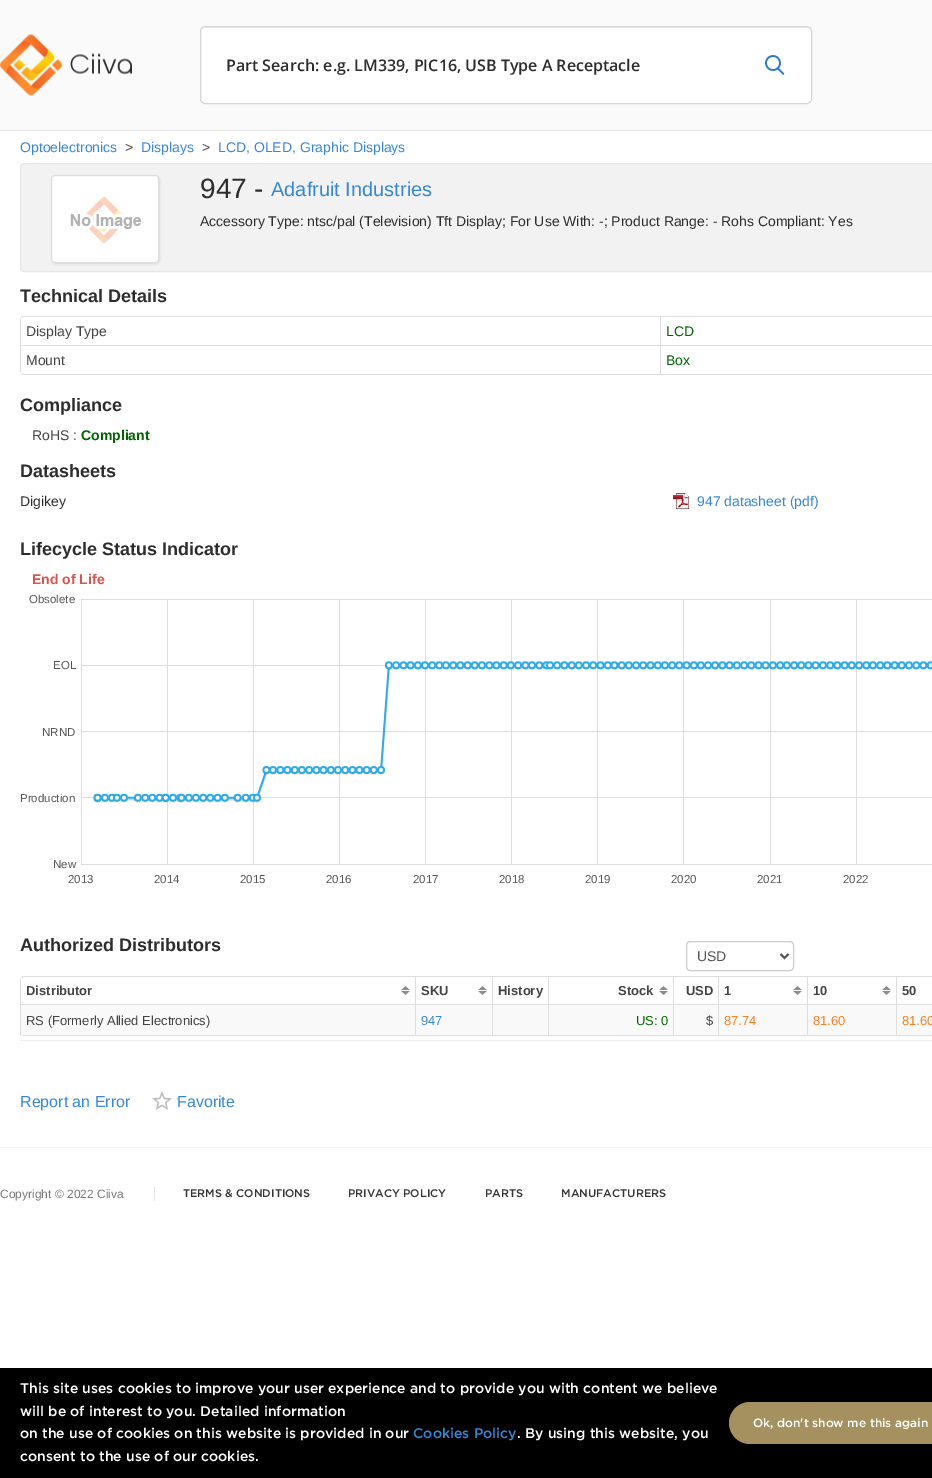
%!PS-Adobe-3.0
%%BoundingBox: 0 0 932 1478
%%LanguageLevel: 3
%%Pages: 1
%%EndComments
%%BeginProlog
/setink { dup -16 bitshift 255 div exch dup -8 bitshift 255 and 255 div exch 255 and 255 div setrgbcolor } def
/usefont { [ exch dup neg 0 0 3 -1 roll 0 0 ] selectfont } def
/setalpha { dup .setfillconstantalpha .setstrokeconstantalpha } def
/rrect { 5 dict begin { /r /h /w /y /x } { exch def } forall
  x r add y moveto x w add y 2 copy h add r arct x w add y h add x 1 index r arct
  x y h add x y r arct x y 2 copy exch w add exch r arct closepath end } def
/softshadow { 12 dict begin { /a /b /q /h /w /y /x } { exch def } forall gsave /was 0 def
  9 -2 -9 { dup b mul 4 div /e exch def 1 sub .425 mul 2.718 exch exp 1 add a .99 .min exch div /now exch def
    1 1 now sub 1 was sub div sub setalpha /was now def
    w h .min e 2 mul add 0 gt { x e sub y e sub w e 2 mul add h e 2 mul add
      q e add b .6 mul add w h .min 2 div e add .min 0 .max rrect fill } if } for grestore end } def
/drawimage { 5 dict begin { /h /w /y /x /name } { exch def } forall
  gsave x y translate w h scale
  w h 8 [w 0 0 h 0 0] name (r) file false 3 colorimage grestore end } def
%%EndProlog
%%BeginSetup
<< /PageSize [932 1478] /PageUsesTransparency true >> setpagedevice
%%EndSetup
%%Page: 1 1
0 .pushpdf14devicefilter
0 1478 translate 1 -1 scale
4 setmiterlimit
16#FFFFFF setink
0 0 932 1478 rectfill
16#FAFAFA setink
0 0 932 130 rectfill
16#E5E5E5 setink
0 130 932 1 rectfill
(img1.raw) 0 34 132 62 drawimage
16#FFFFFF setink
200 26 612 78 5 rrect fill
16#ECECEC setink
205 28 moveto 807 28 lineto 809 28 811 30 811 32 curveto 811 31 lineto 811 29 809 27 807 27 curveto 205 27 lineto 203 27 201 29 201 31 curveto 201 32 lineto 201 30 203 28 205 28 curveto closepath fill
16#D6D6D6 setink
200.5 26.5 611 77 4.5 rrect stroke
/OpenSans-SemiBold 16 usefont
16#2D2D2D setink
226 71 moveto (Part Search: e.g. LM339, PIC16, USB Type A Receptacle) show
(img2.raw) 765 55 20 20 drawimage
/LiberationSans-Regular 14 usefont
16#3788D3 setink
20 152 moveto (Optoelectronics) show
16#434343 setink
125 152 moveto (>) show
16#3788D3 setink
141 152 moveto (Displays) show
16#434343 setink
202 152 moveto (>) show
16#3788D3 setink
218 152 moveto (LCD, OLED, Graphic Displays) show
16#F2F2F2 setink
20.5 163.5 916 108 3.5 rrect gsave fill grestore
16#E7E7E7 setink
stroke
16#000000 setink
52 176 108 88 4 1 0.1 softshadow
16#FFFFFF setink
51.5 175.5 107 87 3.5 rrect gsave fill grestore
16#DEDEDE setink
stroke
(img3.raw) 70 194 73 56 drawimage
/LiberationSans-Regular 28 usefont
16#2D2D2D setink
200 198 moveto (947 -) show
/LiberationSans-Regular 20 usefont
16#3788D3 setink
271 196 moveto (Adafruit Industries) show
/LiberationSans-Regular 14 usefont
16#2D2D2D setink
200 226 moveto (Accessory Type: ntsc/pal \(Television\) Tft Display; For Use With: -; Product Range: - Rohs Compliant: Yes) show
/LiberationSans-Bold 18 usefont
20 302 moveto (Technical Details) show
16#DDDDDD setink
24 316 moveto 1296 316 lineto 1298 316 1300 318 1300 320 curveto 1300 371 lineto 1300 373 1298 375 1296 375 curveto 24 375 lineto 22 375 20 373 20 371 curveto 20 320 lineto 20 318 22 316 24 316 curveto closepath 24 317 moveto 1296 317 lineto 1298 317 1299 318 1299 320 curveto 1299 371 lineto 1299 373 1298 374 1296 374 curveto 24 374 lineto 22 374 20 373 20 371 curveto 20 320 lineto 20 318 22 317 24 317 curveto closepath eofill
20 319 1 26 rectfill
/LiberationSans-Regular 14 usefont
16#434343 setink
26 336 moveto (Display Type) show
16#DDDDDD setink
660 317 1 28 rectfill
16#006400 setink
666 336 moveto (LCD) show
16#DDDDDD setink
20 345 912 1 rectfill
20 345 1 27 rectfill
16#434343 setink
26 365 moveto (Mount) show
16#DDDDDD setink
660 345 1 29 rectfill
16#006400 setink
666 365 moveto (Box) show
/LiberationSans-Bold 18 usefont
16#2D2D2D setink
20 411 moveto (Compliance) show
/LiberationSans-Regular 14 usefont
16#434343 setink
32 440 moveto (RoHS :) show
/LiberationSans-Bold 14 usefont
16#006400 setink
81 440 moveto (Compliant) show
/LiberationSans-Bold 18 usefont
16#2D2D2D setink
20 477 moveto (Datasheets) show
/LiberationSans-Regular 14 usefont
20 506 moveto (Digikey) show
(img4.raw) 673 493 16 16 drawimage
16#3788D3 setink
697 506 moveto (947 datasheet \(pdf\)) show
/LiberationSans-Bold 18 usefont
16#2D2D2D setink
20 555 moveto (Lifecycle Status Indicator) show
/LiberationSans-Bold 14 usefont
16#D9534F setink
32 584 moveto (End of Life) show
/LiberationSans-Regular 11.5 usefont
16#555555 setink
[
    [(Obsolete) 29 603]
    [(EOL) 53 669]
    [(NRND) 42 736]
    [(Production) 20 802]
    [(New) 53 868]
    [(2013) 68 883]
    [(2014) 154 883]
    [(2015) 240 883]
    [(2016) 326 883]
    [(2017) 413 883]
    [(2018) 499 883]
    [(2019) 585 883]
    [(2020) 671 883]
    [(2021) 757 883]
    [(2022) 843 883]
] { aload pop moveto show } forall
(img5.raw) 81 599 851 266 drawimage
/LiberationSans-Bold 18 usefont
16#2D2D2D setink
20 951 moveto (Authorized Distributors) show
16#CCCCCC setink
686.5 941.5 107 29 3.5 rrect stroke
16#555555 setink
2 setlinewidth
780.5 954 moveto 784.5 958 lineto 788.5 954 lineto stroke
/LiberationSans-Regular 14 usefont
697 961 moveto (USD) show
16#DDDDDD setink
24 976 moveto 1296 976 lineto 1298 976 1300 978 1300 980 curveto 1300 1032 lineto 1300 1034 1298 1036 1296 1036 curveto 24 1036 lineto 22 1036 20 1034 20 1032 curveto 20 980 lineto 20 978 22 976 24 976 curveto closepath 24 977 moveto 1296 977 lineto 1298 977 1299 978 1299 980 curveto 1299 1032 lineto 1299 1034 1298 1035 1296 1035 curveto 24 1035 lineto 22 1035 20 1034 20 1032 curveto 20 980 lineto 20 978 22 977 24 977 curveto closepath eofill
(img6.raw) 401 986 9 9 drawimage
20 979 1 25 rectfill
/LiberationSans-Bold 13 usefont
16#434343 setink
26 995 moveto (Distributor) show
(img6.raw) 478 986 9 9 drawimage
16#DDDDDD setink
415 977 1 27 rectfill
16#434343 setink
421 995 moveto (SKU) show
16#DDDDDD setink
492 977 1 27 rectfill
16#434343 setink
498 995 moveto (History) show
(img6.raw) 659 986 9 9 drawimage
16#DDDDDD setink
548 977 1 27 rectfill
16#434343 setink
618 995 moveto (Stock) show
16#DDDDDD setink
673 977 1 27 rectfill
16#434343 setink
686 995 moveto (USD) show
(img6.raw) 793 986 9 9 drawimage
16#DDDDDD setink
718 977 1 27 rectfill
16#434343 setink
724 995 moveto (1) show
(img6.raw) 882 986 9 9 drawimage
16#DDDDDD setink
807 977 1 27 rectfill
16#434343 setink
813 995 moveto (10) show
16#DDDDDD setink
896 977 1 27 rectfill
16#434343 setink
902 995 moveto (50) show
[
    [21 1005 911 30 16#F9F9F9]
    [20 1004 912 1 16#DDDDDD]
    [20 1004 1 31 16#DDDDDD]
] { aload pop setink rectfill } forall
/LiberationSans-Regular 13 usefont
16#434343 setink
26 1025 moveto (RS \(Formerly Allied Electronics\)) show
16#DDDDDD setink
415 1004 1 31 rectfill
16#3788D3 setink
421 1025 moveto (947) show
16#DDDDDD setink
492 1004 1 31 rectfill
548 1004 1 31 rectfill
16#006400 setink
636 1025 moveto (US: 0) show
16#DDDDDD setink
673 1004 1 31 rectfill
16#434343 setink
706 1025 moveto ($) show
16#DDDDDD setink
718 1004 1 31 rectfill
16#F57E20 setink
724 1025 moveto (87.74) show
16#DDDDDD setink
807 1004 1 31 rectfill
16#F57E20 setink
813 1025 moveto (81.60) show
16#DDDDDD setink
896 1004 1 31 rectfill
16#F57E20 setink
902 1025 moveto (81.60) show
16#EEEEEE setink
20 1040 912 1 rectfill
/LiberationSans-Regular 16 usefont
16#3788D3 setink
20 1107 moveto (Report an Error) show
(img7.raw) 152 1091 26 19 drawimage
177 1107 moveto (Favorite) show
16#F4F4F4 setink
0 1147 932 1 rectfill
/LiberationSans-Regular 12 usefont
16#777777 setink
0 1198 moveto (Copyright © 2022 Ciiva) show
16#E3E3E3 setink
154 1187 1 14 rectfill
/Gotham-Medium 11 usefont
16#333333 setink
[
    [(TERMS & CONDITIONS) 183 1197]
    [(PRIVACY POLICY) 348 1197]
    [(PARTS) 485 1197]
    [(MANUFACTURERS) 561 1197]
] { aload pop moveto show } forall
16#000000 setink
0 1368 932 110 rectfill
/Gotham-Medium 14 usefont
16#FFFFFF setink
[
    [(This site uses cookies to improve your user experience and to provide you with content we believe) 20 1393]
    [(will be of interest to you. Detailed information) 20 1416]
    [(on the use of cookies on this website is provided in our) 20 1438]
] { aload pop moveto show } forall
16#3788D3 setink
413 1438 moveto (Cookies Policy) show
16#FFFFFF setink
517 1438 moveto (. By using this website, you) show
20 1461 moveto (consent to the use of our cookies.) show
16#A5915F setink
729 1402 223 42 21 rrect fill
/Gotham-Medium 12 usefont
16#FFFFFF setink
753 1427 moveto (Ok, don't show me this again) show
.poppdf14devicefilter showpage
%%EOF
